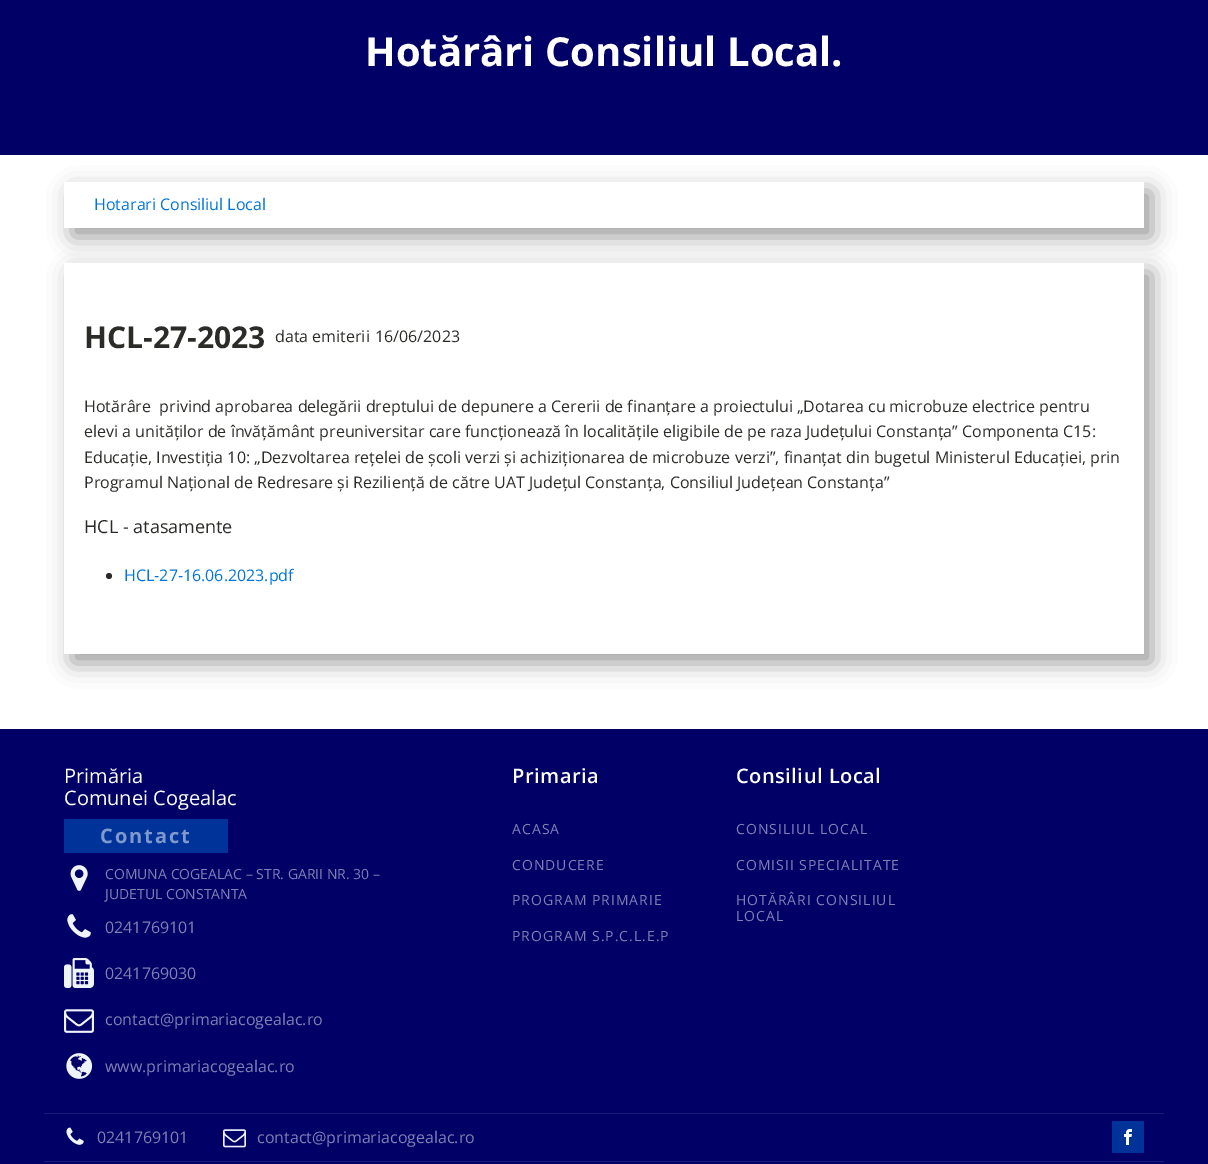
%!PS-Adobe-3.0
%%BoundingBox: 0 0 1208 1164
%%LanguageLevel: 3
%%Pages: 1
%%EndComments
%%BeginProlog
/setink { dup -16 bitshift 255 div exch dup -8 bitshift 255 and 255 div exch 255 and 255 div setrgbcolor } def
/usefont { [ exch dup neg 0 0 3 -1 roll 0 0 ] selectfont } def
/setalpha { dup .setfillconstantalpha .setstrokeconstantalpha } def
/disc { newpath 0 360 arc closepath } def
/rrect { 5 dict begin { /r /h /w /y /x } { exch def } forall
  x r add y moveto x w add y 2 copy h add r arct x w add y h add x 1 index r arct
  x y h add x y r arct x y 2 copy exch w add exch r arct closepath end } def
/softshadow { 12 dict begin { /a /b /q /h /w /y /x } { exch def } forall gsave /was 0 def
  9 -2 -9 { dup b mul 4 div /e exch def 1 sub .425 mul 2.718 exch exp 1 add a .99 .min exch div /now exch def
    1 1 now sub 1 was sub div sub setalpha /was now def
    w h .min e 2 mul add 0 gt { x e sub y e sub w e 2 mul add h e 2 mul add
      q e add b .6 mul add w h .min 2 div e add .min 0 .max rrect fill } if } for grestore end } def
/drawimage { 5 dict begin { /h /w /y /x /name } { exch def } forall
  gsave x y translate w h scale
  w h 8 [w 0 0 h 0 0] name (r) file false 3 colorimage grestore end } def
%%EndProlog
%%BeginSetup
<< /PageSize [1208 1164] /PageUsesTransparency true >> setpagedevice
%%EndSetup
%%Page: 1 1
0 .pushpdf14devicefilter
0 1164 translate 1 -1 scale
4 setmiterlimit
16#FFFFFF setink
0 0 1208 1164 rectfill
16#010066 setink
0 0 1208 155 rectfill
/OpenSans-Bold 40 usefont
16#FFFFFF setink
365 66 moveto (Hotărâri Consiliul Local.) show
gsave
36 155 moveto 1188 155 lineto 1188 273 lineto 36 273 lineto closepath 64 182 moveto 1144 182 lineto 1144 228 lineto 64 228 lineto closepath eoclip newpath
16#999999 setink
72 191 1080 46 0 11.5 1 softshadow
grestore
/OpenSans-Regular 16 usefont
16#0074DB setink
94 210 moveto (Hotarari Consiliul Local) show
gsave
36 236 moveto 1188 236 lineto 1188 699 lineto 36 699 lineto closepath 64 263 moveto 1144 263 lineto 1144 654 lineto 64 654 lineto closepath eoclip newpath
16#999999 setink
72 272 1080 391 0 11.5 1 softshadow
grestore
/OpenSans-Bold 30 usefont
16#2B2C28 setink
84 348 moveto (HCL-27-2023) show
/OpenSans-Regular 16 usefont
[
    [(data emiterii) 275 342]
    [(16/06/2023) 375 342]
    [(Hotărâre  privind aprobarea delegării dreptului de depunere a Cererii de finanțare a proiectului „Dotarea cu microbuze electrice pentru) 84 412]
    [(elevi a unităților de învățământ preuniversitar care funcționează în localitățile eligibile de pe raza Județului Constanța” Componenta C15:) 84 437]
    [(Educație, Investiția 10: „Dezvoltarea rețelei de școli verzi și achiziționarea de microbuze verzi”, finanțat din bugetul Ministerul Educației, prin) 84 463]
    [(Programul Național de Redresare și Reziliență de către UAT Județul Constanța, Consiliul Județean Constanța”) 84 488]
] { aload pop moveto show } forall
/OpenSans-Regular 18 usefont
84 533 moveto (HCL - atasamente) show
109 576 3 disc fill
/OpenSans-Regular 16 usefont
16#0074DB setink
124 581 moveto (HCL-27-16.06.2023.pdf) show
16#010066 setink
0 729 1208 435 rectfill
16#1A1A75 setink
44 1113 1120 1 rectfill
/OpenSans-Regular 20 usefont
16#FFFFFF setink
64 783 moveto (Primăria) show
64 805 moveto (Comunei Cogealac) show
16#003399 setink
64 819 164 34 rectfill
/OpenSans-Bold 20 usefont
16#8099CC setink
100 843 moveto 2 0 (Contact) ashow
(img1.raw) 70 865 18 26 drawimage
/OpenSans-Regular 14 usefont
16#8080B3 setink
105 879 moveto (COMUNA COGEALAC – STR. GARII NR. 30 –) show
105 899 moveto (JUDETUL CONSTANTA) show
(img2.raw) 67 914 24 24 drawimage
/OpenSans-Regular 16 usefont
105 933 moveto (0241769101) show
(img3.raw) 64 958 30 30 drawimage
105 979 moveto (0241769030) show
(img4.raw) 64 1009 30 24 drawimage
105 1025 moveto (contact@primariacogealac.ro) show
(img5.raw) 66 1053 27 26 drawimage
105 1072 moveto (www.primariacogealac.ro) show
/OpenSans-SemiBold 20 usefont
16#FFFFFF setink
512 783 moveto 0.5 0 (Primaria) ashow
/OpenSans-Regular 14 usefont
16#8080B3 setink
512 834 moveto 1 0 (ACASA) ashow
512 870 moveto 1 0 (CONDUCERE) ashow
512 905 moveto 1 0 (PROGRAM PRIMARIE) ashow
512 941 moveto 1 0 (PROGRAM S.P.C.L.E.P) ashow
/OpenSans-SemiBold 20 usefont
16#FFFFFF setink
736 783 moveto 0.5 0 (Consiliul Local) ashow
/OpenSans-Regular 14 usefont
16#8080B3 setink
736 834 moveto 1 0 (CONSILIUL LOCAL) ashow
736 870 moveto 1 0 (COMISII SPECIALITATE) ashow
736 905 moveto 1 0 (HOTĂRÂRI CONSILIUL) ashow
736 921 moveto 1 0 (LOCAL) ashow
(img6.raw) 66 1127 18 18 drawimage
/OpenSans-Regular 16 usefont
97 1143 moveto (0241769101) show
(img7.raw) 223 1129 23 19 drawimage
257 1143 moveto (contact@primariacogealac.ro) show
16#003399 setink
1112 1121 32 32 rectfill
(img8.raw) 1124 1129 8 16 drawimage
16#1A1A75 setink
44 1161 1120 1 rectfill
.poppdf14devicefilter showpage
%%EOF
